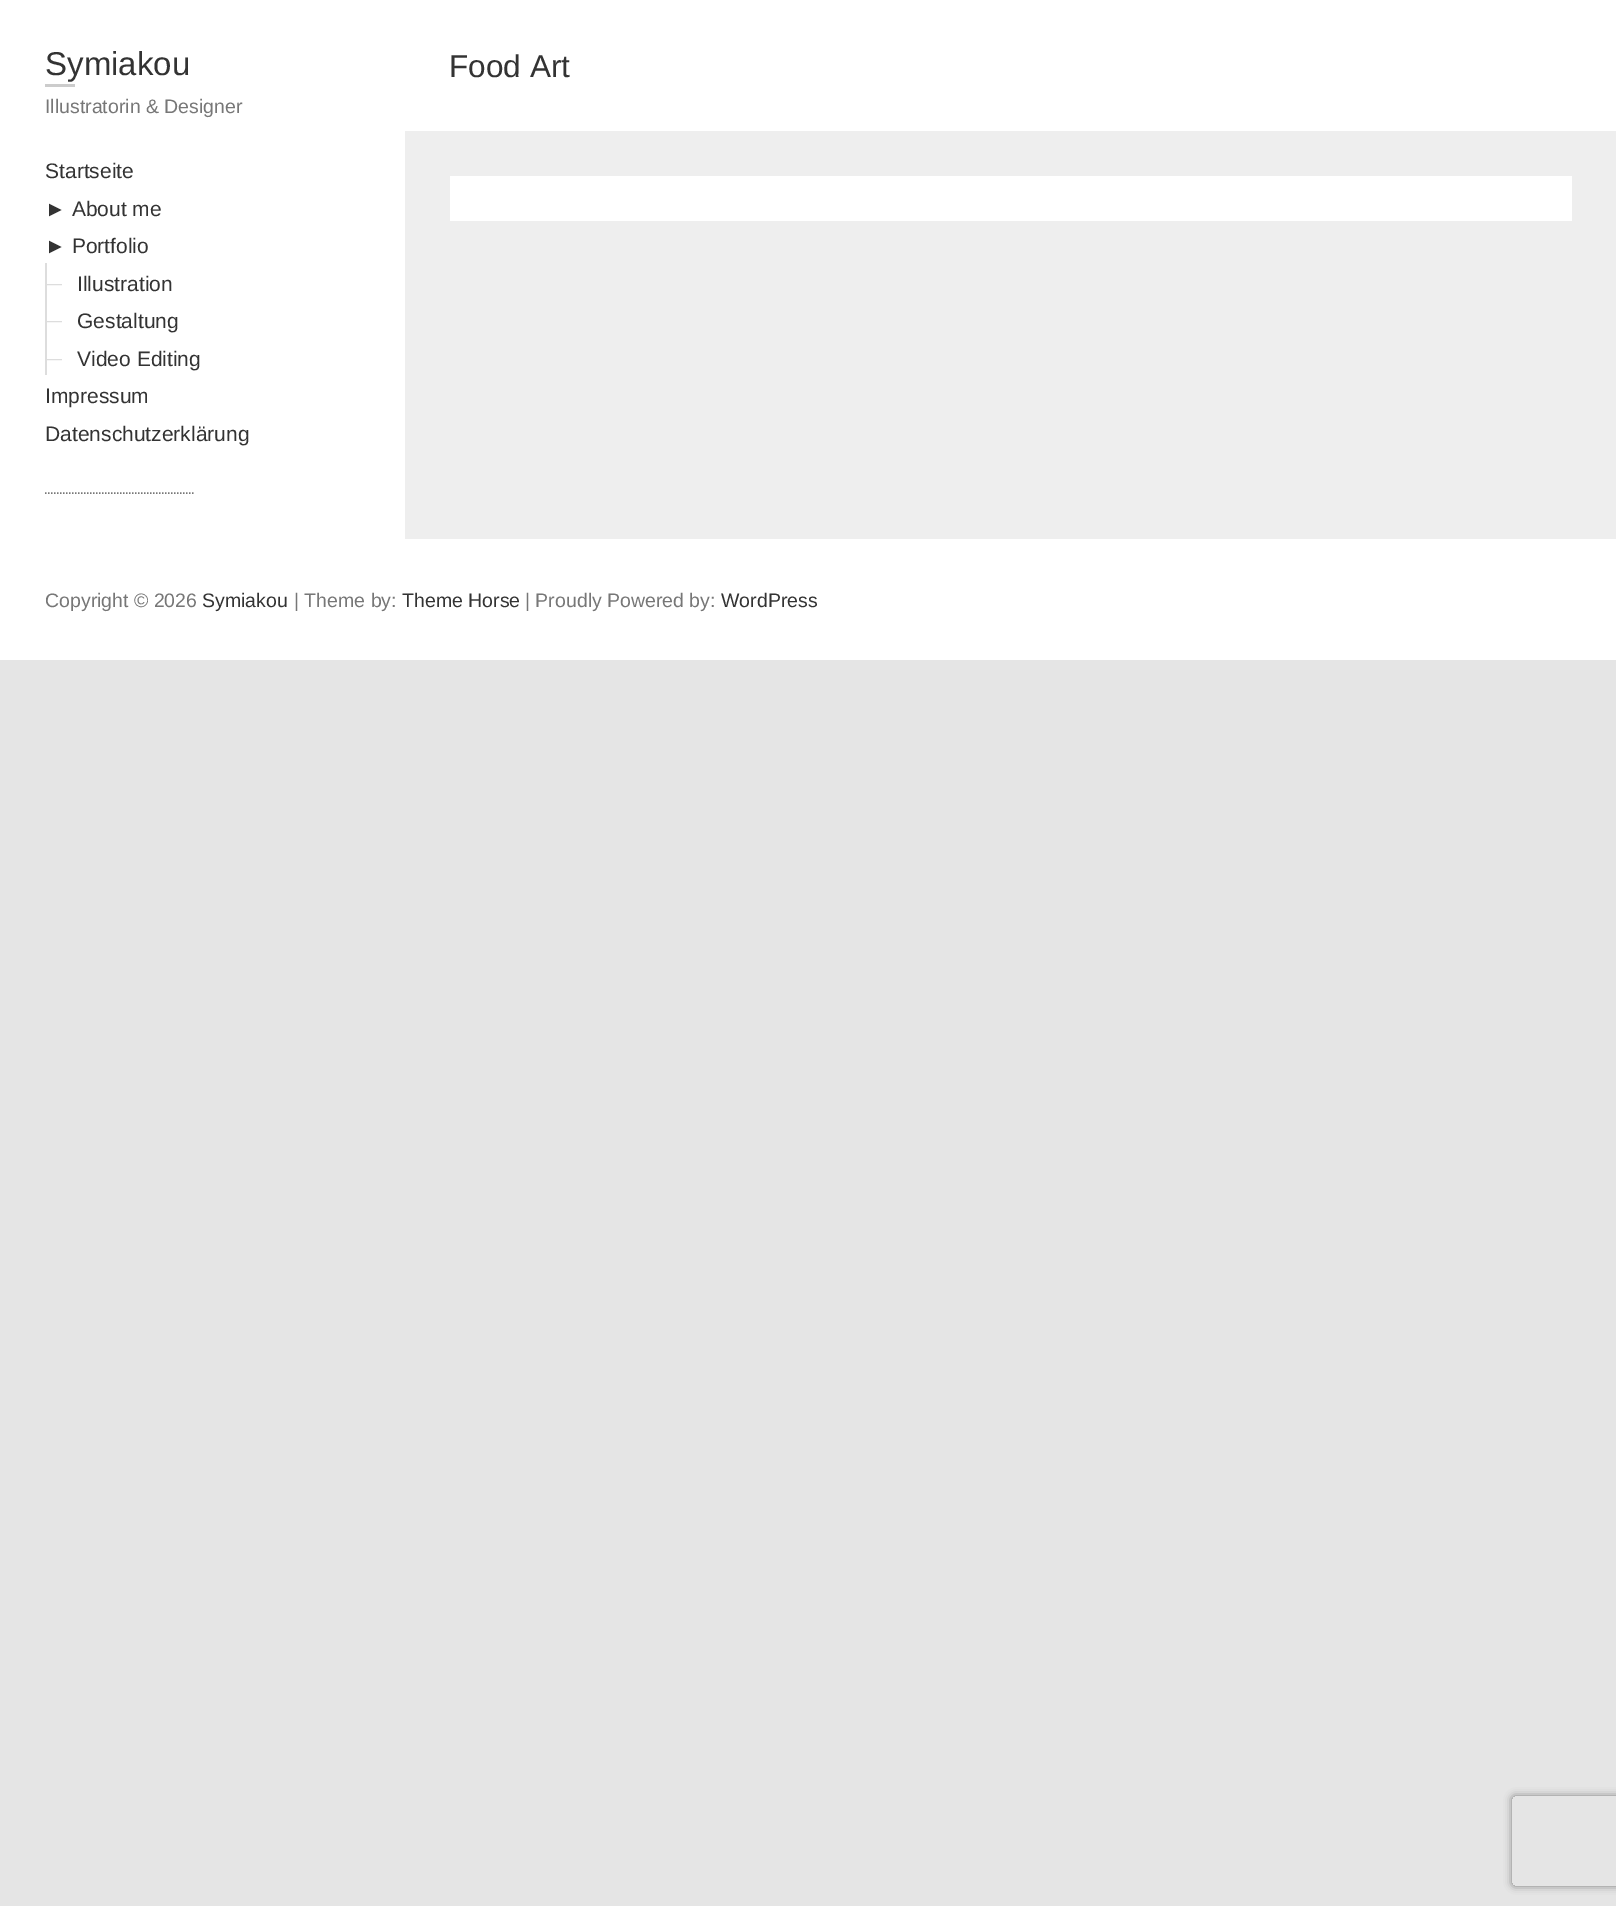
%!PS-Adobe-3.0
%%BoundingBox: 0 0 1616 1906
%%LanguageLevel: 3
%%Pages: 1
%%EndComments
%%BeginProlog
/setink { dup -16 bitshift 255 div exch dup -8 bitshift 255 and 255 div exch 255 and 255 div setrgbcolor } def
/usefont { [ exch dup neg 0 0 3 -1 roll 0 0 ] selectfont } def
/setalpha { dup .setfillconstantalpha .setstrokeconstantalpha } def
/rrect { 5 dict begin { /r /h /w /y /x } { exch def } forall
  x r add y moveto x w add y 2 copy h add r arct x w add y h add x 1 index r arct
  x y h add x y r arct x y 2 copy exch w add exch r arct closepath end } def
/softshadow { 12 dict begin { /a /b /q /h /w /y /x } { exch def } forall gsave /was 0 def
  9 -2 -9 { dup b mul 4 div /e exch def 1 sub .425 mul 2.718 exch exp 1 add a .99 .min exch div /now exch def
    1 1 now sub 1 was sub div sub setalpha /was now def
    w h .min e 2 mul add 0 gt { x e sub y e sub w e 2 mul add h e 2 mul add
      q e add b .6 mul add w h .min 2 div e add .min 0 .max rrect fill } if } for grestore end } def
%%EndProlog
%%BeginSetup
<< /PageSize [1616 1906] /PageUsesTransparency true >> setpagedevice
%%EndSetup
%%Page: 1 1
0 .pushpdf14devicefilter
0 1906 translate 1 -1 scale
4 setmiterlimit
16#E5E5E5 setink
0 0 1616 1906 rectfill
16#EEEEEE setink
405 131 1211 408 rectfill
16#FFFFFF setink
0 0 405 539 rectfill
/LiberationSans-Regular 33 usefont
16#333333 setink
45 75 moveto (Symiakou) show
16#CCCCCC setink
45 84 30 3 rectfill
/LiberationSans-Regular 19.5 usefont
16#777777 setink
45 113 moveto (Illustratorin & Designer) show
/LiberationSans-Regular 21 usefont
16#333333 setink
[
    [(Startseite) 45 178]
    [(► About me) 45 216]
    [(► Portfolio) 45 253]
] { aload pop moveto show } forall
16#DDDDDD setink
45 263 2 112 rectfill
47 291 moveto (─) show
16#333333 setink
77 291 moveto (Illustration) show
16#DDDDDD setink
47 328 moveto (─) show
16#333333 setink
77 328 moveto (Gestaltung) show
16#DDDDDD setink
47 366 moveto (─) show
16#333333 setink
[
    [(Video Editing) 77 366]
    [(Impressum) 45 403]
    [(Datenschutzerklärung) 45 441]
] { aload pop moveto show } forall
16#777777 setink
1.5 setlinewidth
[1.5 1.5] 0 setdash
45 493 moveto 195 493 lineto stroke
16#FFFFFF setink
405 0 1211 131 rectfill
/LiberationSans-Regular 31.5 usefont
16#333333 setink
449 77 moveto (Food Art) show
16#FFFFFF setink
450 176 1122 45 rectfill
0 539 1616 121 rectfill
/LiberationSans-Regular 19.5 usefont
16#777777 setink
45 607 moveto (Copyright © 2026) show
16#333333 setink
202 607 moveto (Symiakou) show
16#777777 setink
294 607 moveto (| Theme by:) show
16#333333 setink
402 607 moveto (Theme Horse) show
16#777777 setink
525 607 moveto (| Proudly Powered by:) show
16#333333 setink
721 607 moveto (WordPress) show
gsave
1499 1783 moveto 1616 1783 lineto 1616 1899 lineto 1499 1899 lineto closepath 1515 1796 moveto 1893 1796 lineto 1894.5 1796 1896 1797.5 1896 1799 curveto 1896 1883 lineto 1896 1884.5 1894.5 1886 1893 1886 curveto 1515 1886 lineto 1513.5 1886 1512 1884.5 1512 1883 curveto 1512 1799 lineto 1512 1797.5 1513.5 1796 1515 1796 curveto closepath eoclip newpath
16#808080 setink
1512 1796 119 90 3 4 1 softshadow
grestore
.poppdf14devicefilter showpage
%%EOF
